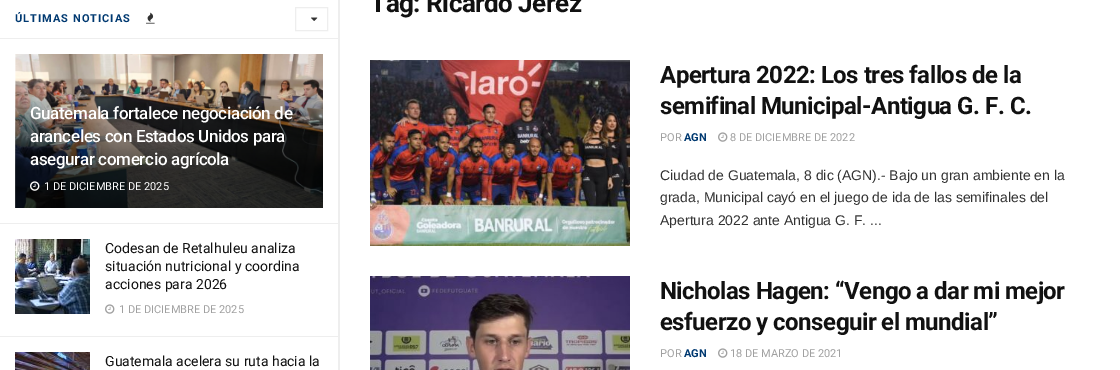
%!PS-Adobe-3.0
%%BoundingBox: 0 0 1120 370
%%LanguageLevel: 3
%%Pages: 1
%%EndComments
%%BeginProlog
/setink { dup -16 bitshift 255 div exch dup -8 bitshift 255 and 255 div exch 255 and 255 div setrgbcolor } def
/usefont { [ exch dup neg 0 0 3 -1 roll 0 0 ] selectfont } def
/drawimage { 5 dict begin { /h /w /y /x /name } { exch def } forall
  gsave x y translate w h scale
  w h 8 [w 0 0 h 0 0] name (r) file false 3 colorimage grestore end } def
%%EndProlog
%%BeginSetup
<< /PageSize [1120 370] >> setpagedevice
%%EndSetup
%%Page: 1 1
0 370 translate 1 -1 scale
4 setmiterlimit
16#FFFFFF setink
0 0 1120 370 rectfill
16#EEEEEE setink
338 0 2 370 rectfill
0 38 338 1 rectfill
/Roboto-Bold 11 usefont
16#003971 setink
15 22 moveto 1 0 (ÚLTIMAS NOTICIAS) ashow
(img1.raw) 146 12 9 12 drawimage
16#EEEEEE setink
295.5 7.5 32 23 rectstroke
(img2.raw) 311 17 7 4 drawimage
0 223 338 1 rectfill
(img3.raw) 15 54 308 154 drawimage
/Roboto-Medium 17 usefont
16#FFFFFF setink
30 119 moveto -0.35 0 (Guatemala fortalece negociación de) ashow
30 142 moveto -0.35 0 (aranceles con Estados Unidos para) ashow
30 165 moveto -0.35 0 (asegurar comercio agrícola) ashow
(img4.raw) 30 181 10 10 drawimage
/Roboto-Regular 11 usefont
44 190 moveto (1 DE DICIEMBRE DE 2025) show
16#EEEEEE setink
0 336 338 1 rectfill
(img5.raw) 15 239 75 75 drawimage
/Roboto-Regular 14 usefont
16#111111 setink
[
    [(Codesan de Retalhuleu analiza) 105 253]
    [(situación nutricional y coordina) 105 271]
    [(acciones para 2026) 105 289]
] { aload pop moveto show } forall
(img6.raw) 105 304 10 10 drawimage
/Roboto-Regular 11 usefont
16#A0A0A0 setink
119 313 moveto (1 DE DICIEMBRE DE 2025) show
(img7.raw) 15 352 75 18 drawimage
/Roboto-Regular 14 usefont
16#111111 setink
105 366 moveto (Guatemala acelera su ruta hacia la) show
/Roboto-Bold 26 usefont
370 12 moveto -0.5 0 (Tag: Ricardo Jerez) ashow
(img8.raw) 370 60 260 186 drawimage
/Roboto-Bold 24 usefont
660 83 moveto -0.5 0 (Apertura 2022: Los tres fallos de la) ashow
660 114 moveto -0.5 0 (semifinal Municipal-Antigua G. F. C.) ashow
/Roboto-Regular 11 usefont
16#A0A0A0 setink
660 141 moveto (POR) show
/Roboto-Bold 11 usefont
16#003971 setink
684 141 moveto (AGN) show
(img6.raw) 718 132 10 10 drawimage
/Roboto-Regular 11 usefont
16#A0A0A0 setink
730 141 moveto (8 DE DICIEMBRE DE 2022) show
/LiberationSans-Regular 14 usefont
16#323232 setink
[
    [(Ciudad de Guatemala, 8 dic \(AGN\).- Bajo un gran ambiente en la) 660 180]
    [(grada, Municipal cayó en el juego de ida de las semifinales del) 660 202]
    [(Apertura 2022 ante Antigua G. F. ...) 660 225]
] { aload pop moveto show } forall
(img9.raw) 370 276 260 94 drawimage
/Roboto-Bold 24 usefont
16#111111 setink
660 299 moveto -0.5 0 (Nicholas Hagen: “Vengo a dar mi mejor) ashow
660 330 moveto -0.5 0 (esfuerzo y conseguir el mundial”) ashow
/Roboto-Regular 11 usefont
16#A0A0A0 setink
660 357 moveto (POR) show
/Roboto-Bold 11 usefont
16#003971 setink
684 357 moveto (AGN) show
(img6.raw) 718 348 10 10 drawimage
/Roboto-Regular 11 usefont
16#A0A0A0 setink
730 357 moveto (18 DE MARZO DE 2021) show
showpage
%%EOF
